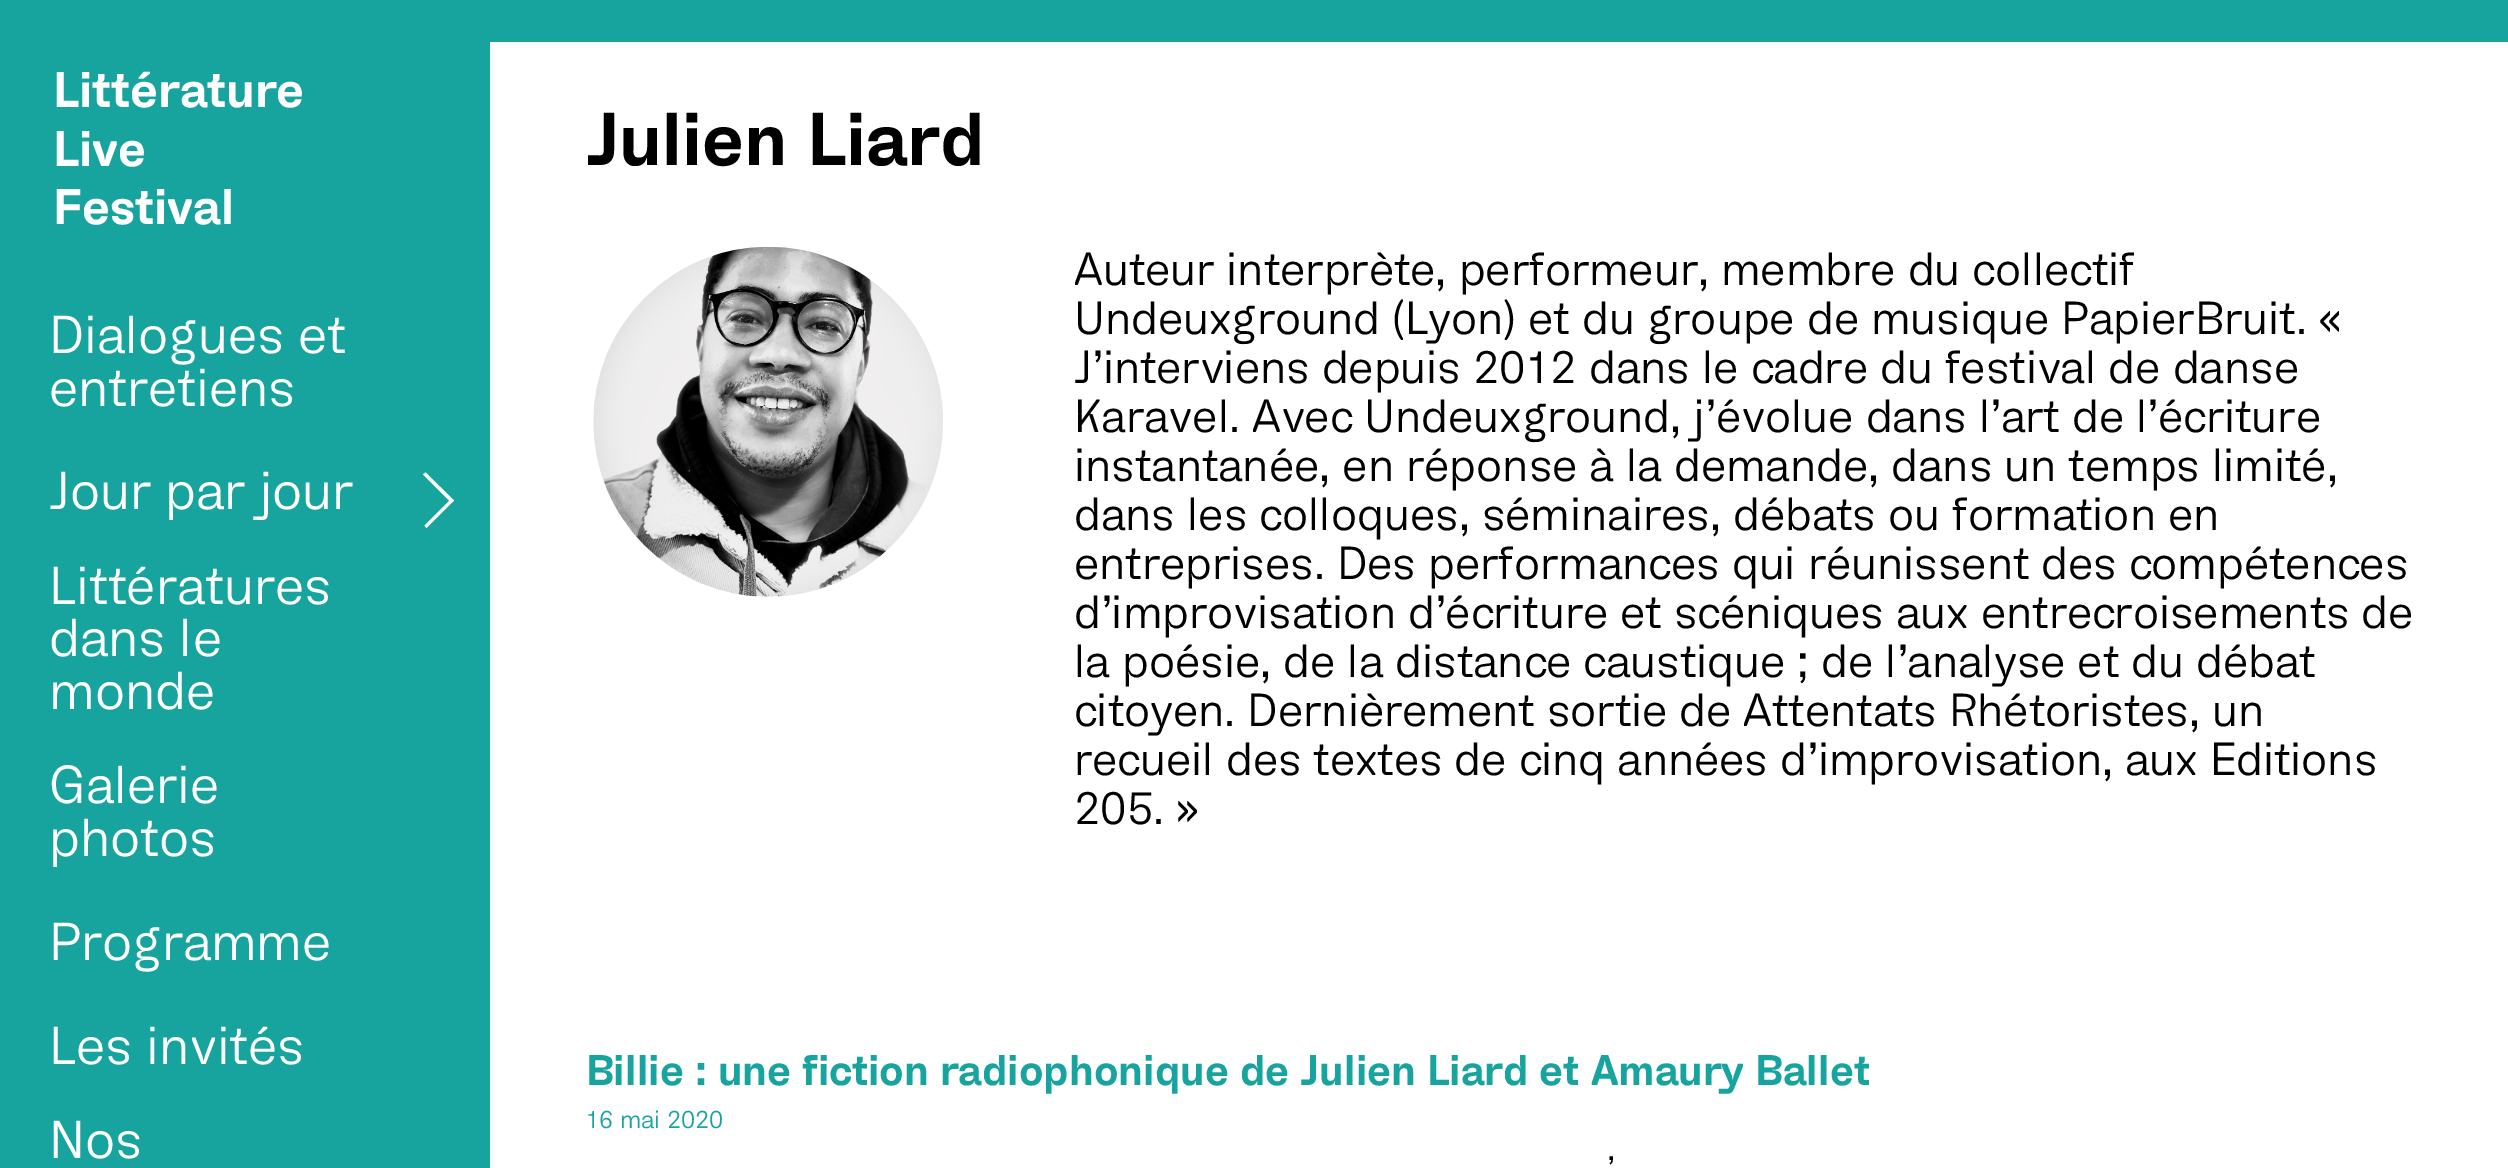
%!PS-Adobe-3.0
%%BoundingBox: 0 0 2508 1168
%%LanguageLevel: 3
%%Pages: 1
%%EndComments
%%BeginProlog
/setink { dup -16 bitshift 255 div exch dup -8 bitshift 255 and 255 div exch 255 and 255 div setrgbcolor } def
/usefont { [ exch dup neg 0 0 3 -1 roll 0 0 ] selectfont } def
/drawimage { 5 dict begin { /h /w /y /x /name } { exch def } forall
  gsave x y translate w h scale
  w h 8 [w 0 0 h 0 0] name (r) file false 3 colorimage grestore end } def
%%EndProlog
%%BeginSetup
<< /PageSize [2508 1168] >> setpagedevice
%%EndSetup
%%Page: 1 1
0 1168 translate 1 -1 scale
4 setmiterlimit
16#17A49E setink
0 0 2508 1168 rectfill
/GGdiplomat-Bold 49 usefont
16#FFFFFF setink
[
    [(Littérature) 53 107]
    [(Live) 53 166]
    [(Festival) 53 224]
] { aload pop moveto show } forall
/GGdiplomat-Regular 52.5 usefont
[
    [(Dialogues et) 49 353]
    [(entretiens) 49 406]
    [(Jour par jour) 49 509]
] { aload pop moveto show } forall
425.5 472.5 moveto 454 500.5 lineto 451.5 503 lineto 423 474.5 lineto closepath fill
451.5 498.5 moveto 454 500.5 lineto 426.5 528 lineto 424.5 525.5 lineto closepath fill
[
    [(Littératures) 49 604]
    [(dans le) 49 656]
    [(monde) 49 709]
    [(Galerie) 49 803]
    [(photos) 49 856]
    [(Programme) 49 960]
    [(Les invités) 49 1064]
    [(Nos) 49 1158]
] { aload pop moveto show } forall
490 42 2018 1126 rectfill
/GGdiplomat-Bold 73.5 usefont
16#000000 setink
586 165 moveto (Julien Liard) show
(img1.raw) 593 246 350 351 drawimage
/GGdiplomat-Regular 45.5 usefont
[
    [(Auteur interprète, performeur, membre du collectif) 1074 285]
    [(Undeuxground \(Lyon\) et du groupe de musique PapierBruit. «) 1074 334]
    [(J’interviens depuis 2012 dans le cadre du festival de danse) 1074 383]
    [(Karavel. Avec Undeuxground, j’évolue dans l’art de l’écriture) 1074 432]
    [(instantanée, en réponse à la demande, dans un temps limité,) 1074 481]
    [(dans les colloques, séminaires, débats ou formation en) 1074 530]
    [(entreprises. Des performances qui réunissent des compétences) 1074 579]
    [(d’improvisation d’écriture et scéniques aux entrecroisements de) 1074 628]
    [(la poésie, de la distance caustique ; de l’analyse et du débat) 1074 677]
    [(citoyen. Dernièrement sortie de Attentats Rhétoristes, un) 1074 726]
    [(recueil des textes de cinq années d’improvisation, aux Editions) 1074 775]
    [(205. ») 1074 824]
] { aload pop moveto show } forall
/GGdiplomat-Bold 42 usefont
16#17A49E setink
586 1085 moveto (Billie : une fiction radiophonique de Julien Liard et Amaury Ballet) show
/GGdiplomat-Regular 24.5 usefont
586 1128 moveto (16 mai 2020) show
/GGdiplomat-Regular 32 usefont
16#000000 setink
1607 1179 moveto (’) show
showpage
%%EOF
